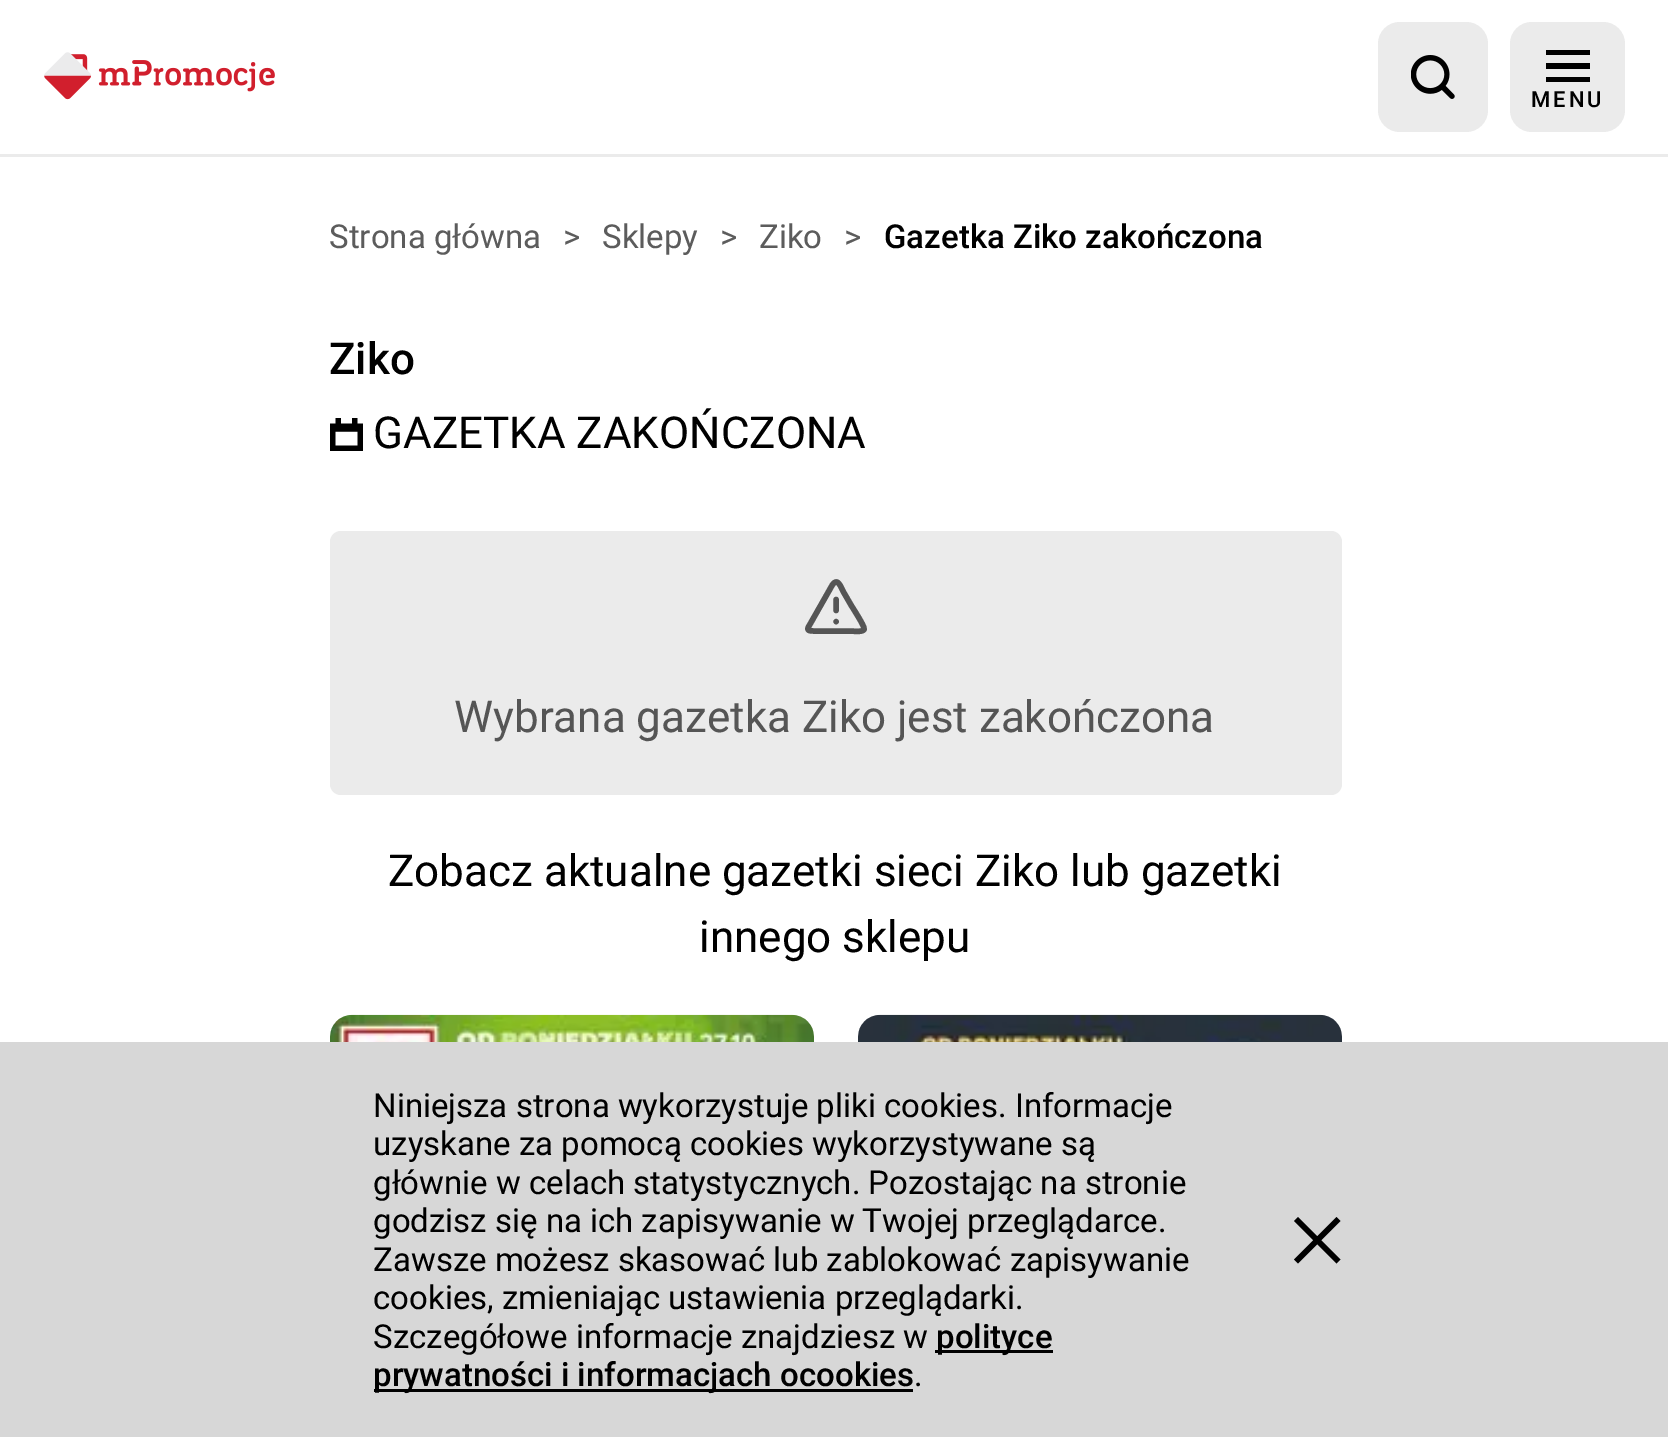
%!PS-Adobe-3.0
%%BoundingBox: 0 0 1668 1437
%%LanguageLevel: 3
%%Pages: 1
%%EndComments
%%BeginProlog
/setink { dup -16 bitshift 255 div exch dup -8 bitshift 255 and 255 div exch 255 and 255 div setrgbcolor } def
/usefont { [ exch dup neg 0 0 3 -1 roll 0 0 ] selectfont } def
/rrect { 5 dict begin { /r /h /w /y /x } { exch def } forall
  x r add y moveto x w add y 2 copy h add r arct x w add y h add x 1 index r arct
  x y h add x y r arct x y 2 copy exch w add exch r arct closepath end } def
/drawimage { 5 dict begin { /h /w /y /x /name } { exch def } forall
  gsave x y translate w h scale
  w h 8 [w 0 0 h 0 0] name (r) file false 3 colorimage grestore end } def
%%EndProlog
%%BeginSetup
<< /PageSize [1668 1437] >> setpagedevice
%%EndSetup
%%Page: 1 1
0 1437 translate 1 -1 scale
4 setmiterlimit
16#FFFFFF setink
0 0 1668 1437 rectfill
16#EBEBEB setink
0 154 1668 3 rectfill
(img1.raw) 44 52 231 48 drawimage
1378 22 110 110 22 rrect fill
(img2.raw) 1411 55 44 44 drawimage
1510 22 115 110 22 rrect fill
16#000000 setink
1590 50 moveto 1546 50 lineto 1546 55 lineto 1590 55 lineto closepath 1546 63 moveto 1590 63 lineto 1590 69 lineto 1546 69 lineto closepath 1546 77 moveto 1590 77 lineto 1590 82 lineto 1546 82 lineto closepath eofill
/Roboto-Medium 22 usefont
1531 107 moveto 3 0 (MENU) ashow
/Roboto-Regular 33 usefont
16#5C5C5C setink
[
    [(Strona główna) 329 248]
    [(>) 563 248]
    [(Sklepy) 602 248]
    [(>) 720 248]
    [(Ziko) 759 248]
    [(>) 844 248]
] { aload pop moveto show } forall
/Roboto-Medium 33 usefont
16#000000 setink
884 248 moveto (Gazetka Ziko zakończona) show
/Roboto-Medium 44 usefont
329 374 moveto (Ziko) show
(img3.raw) 330 418 33 33 drawimage
/Roboto-Regular 44 usefont
373 448 moveto (GAZETKA ZAKOŃCZONA) show
16#EBEBEB setink
330 531 1012 264 11 rrect fill
16#555555 setink
5.5 setlinewidth
1 setlinecap
1 setlinejoin
836 599.5 moveto 836 610.5 lineto 836 621.5 moveto 836 621.5 lineto 832 585.5 moveto 809 626 lineto 806 630.5 809.5 631 813.5 631 curveto 851 631 lineto 851.5 631 862.5 632.5 864 629.5 curveto 864 628.5 lineto 864.5 626 852.5 607.5 851 605 curveto 843.5 592 lineto 840.5 586.5 837.5 576.5 832 585.5 curveto closepath stroke
454 732 moveto (Wybrana gazetka Ziko jest zakończona) show
16#000000 setink
388 886 moveto (Zobacz aktualne gazetki sieci Ziko lub gazetki) show
699 952 moveto (innego sklepu) show
(img4.raw) 330 1014 484 28 drawimage
(img5.raw) 858 1014 484 28 drawimage
16#D7D7D7 setink
0 1042 1668 395 rectfill
/Roboto-Regular 33 usefont
16#000000 setink
[
    [(Niniejsza strona wykorzystuje pliki cookies. Informacje) 373 1117]
    [(uzyskane za pomocą cookies wykorzystywane są) 373 1155]
    [(głównie w celach statystycznych. Pozostając na stronie) 373 1194]
    [(godzisz się na ich zapisywanie w Twojej przeglądarce.) 373 1232]
    [(Zawsze możesz skasować lub zablokować zapisywanie) 373 1271]
    [(cookies, zmieniając ustawienia przeglądarki.) 373 1309]
    [(Szczegółowe informacje znajdziesz w) 373 1348]
] { aload pop moveto show } forall
935 1350 118 3 rectfill
/Roboto-Medium 33 usefont
936 1348 moveto (polityce) show
374 1389 539 3 rectfill
373 1386 moveto (prywatności i informacjach ocookies) show
/Roboto-Regular 33 usefont
914 1386 moveto (.) show
2 setlinecap
0 setlinejoin
1336.5 1221 moveto 1298 1259.5 lineto 1336.5 1259.5 moveto 1298 1221 lineto stroke
showpage
%%EOF
